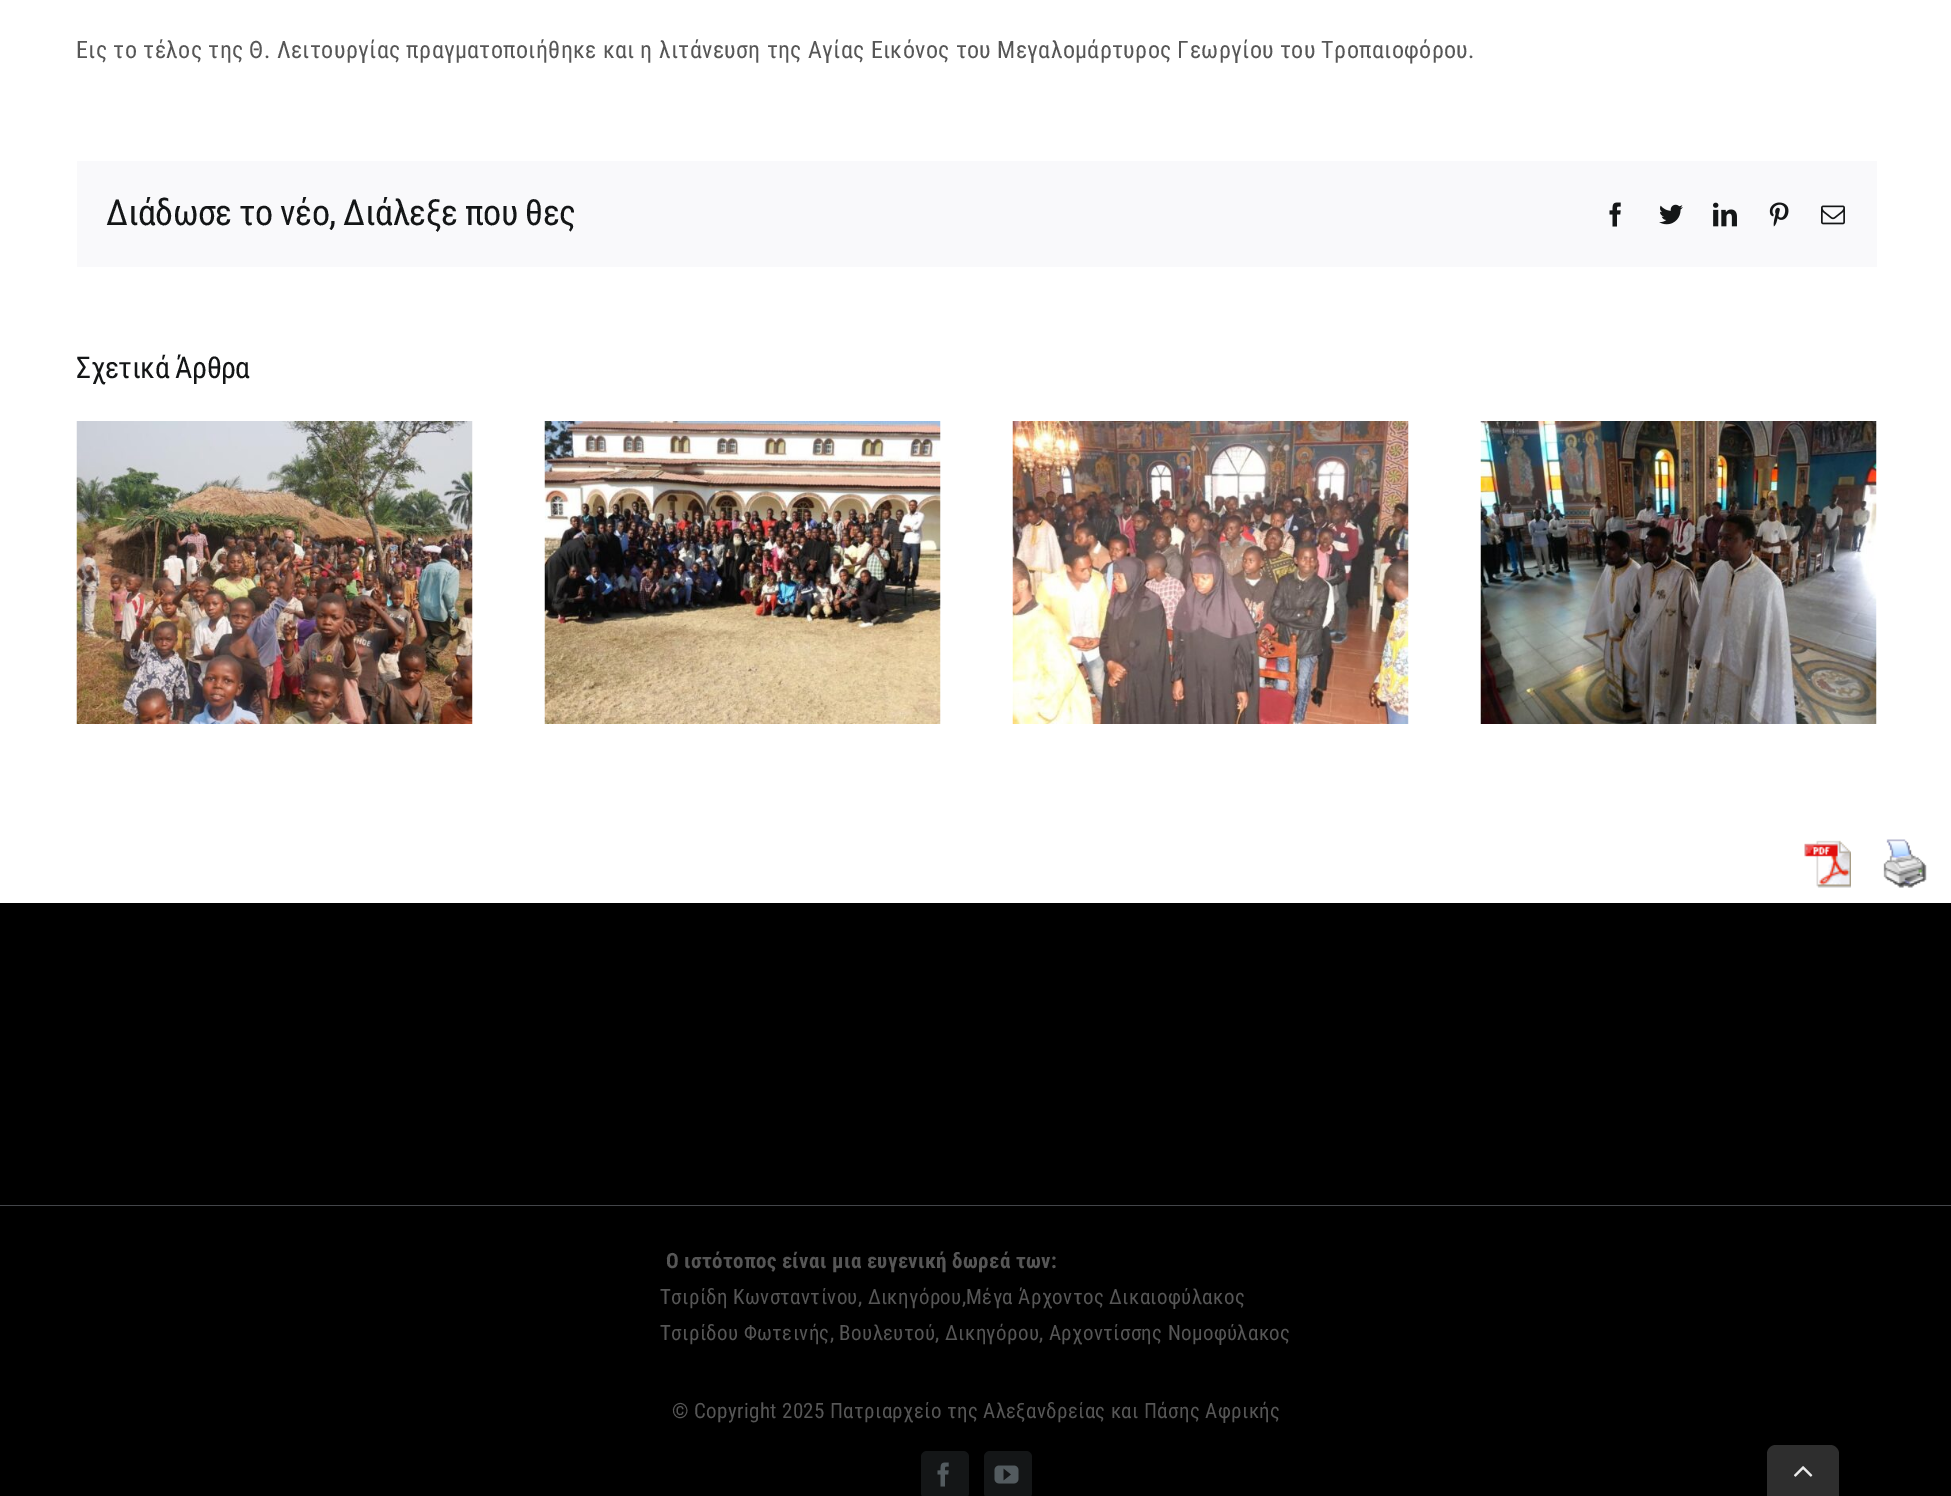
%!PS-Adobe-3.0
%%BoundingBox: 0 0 1951 1496
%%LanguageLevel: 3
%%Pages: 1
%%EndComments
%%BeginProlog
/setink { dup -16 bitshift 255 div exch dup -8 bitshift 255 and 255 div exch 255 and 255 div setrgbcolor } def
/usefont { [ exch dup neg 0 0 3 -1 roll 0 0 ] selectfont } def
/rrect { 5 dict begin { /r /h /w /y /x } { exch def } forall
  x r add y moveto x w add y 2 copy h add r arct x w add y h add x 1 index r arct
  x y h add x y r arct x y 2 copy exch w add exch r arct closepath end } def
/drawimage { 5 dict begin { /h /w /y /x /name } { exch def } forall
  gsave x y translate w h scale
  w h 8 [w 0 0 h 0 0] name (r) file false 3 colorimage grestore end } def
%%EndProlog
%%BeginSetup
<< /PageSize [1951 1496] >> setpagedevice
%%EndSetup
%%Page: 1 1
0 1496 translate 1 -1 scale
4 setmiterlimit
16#FFFFFF setink
0 0 1951 1496 rectfill
/RobotoCondensed-Regular 24 usefont
16#565656 setink
76 58 moveto 0.36 0 (Εις το τέλος της Θ. Λειτουργίας πραγματοποιήθηκε και η λιτάνευση της Αγίας Εικόνος του Μεγαλομάρτυρος Γεωργίου του Τροπαιοφόρου.) ashow
16#F9F9FB setink
77 161 1800 106 rectfill
/RobotoCondensed-Regular 36 usefont
16#141617 setink
106 225 moveto -0.55 0 (Διάδωσε το νέο, Διάλεξε που θες) ashow
(img1.raw) 1609 202 12 25 drawimage
(img2.raw) 1659 204 24 21 drawimage
(img3.raw) 1713 202 24 25 drawimage
(img4.raw) 1769 202 20 25 drawimage
(img5.raw) 1821 205 24 20 drawimage
/RobotoCondensed-Regular 30 usefont
76 378 moveto -0.5 0 (Σχετικά Άρθρα) ashow
(img6.raw) 76 421 397 303 drawimage
(img7.raw) 544 421 397 303 drawimage
(img8.raw) 1012 421 397 303 drawimage
(img9.raw) 1480 421 397 303 drawimage
(img10.raw) 1804 840 47 48 drawimage
(img11.raw) 1883 839 44 49 drawimage
[
    [0 903 1951 302 16#000000]
    [0 1205 1951 1 16#434549]
    [0 1206 1951 290 16#000000]
] { aload pop setink rectfill } forall
/RobotoCondensed-Bold 21 usefont
16#565656 setink
666 1268 moveto 0.36 0 (Ο ιστότοπος είναι μια ευγενική δωρεά των:) ashow
/RobotoCondensed-Regular 21 usefont
660 1304 moveto 0.36 0 (Τσιρίδη Κωνσταντίνου, Δικηγόρου,Μέγα Άρχοντος Δικαιοφύλακος) ashow
660 1340 moveto 0.36 0 (Τσιρίδου Φωτεινής, Βουλευτού, Δικηγόρου, Αρχοντίσσης Νομοφύλακος) ashow
672 1418 moveto 0.36 0 (© Copyright 2025 Πατριαρχείο της Αλεξανδρείας και Πάσης Αφρικής) ashow
16#141617 setink
921 1451 48 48 6 rrect fill
(img12.raw) 937 1462 12 25 drawimage
984 1451 48 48 6 rrect fill
(img13.raw) 994 1465 25 19 drawimage
16#2E2E2E setink
1776 1445 moveto 1830 1445 lineto 1835 1445 1839 1449 1839 1454 curveto 1839 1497 lineto 1767 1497 lineto 1767 1454 lineto 1767 1449 1771 1445 1776 1445 curveto closepath fill
(img14.raw) 1794 1466 19 11 drawimage
showpage
%%EOF
